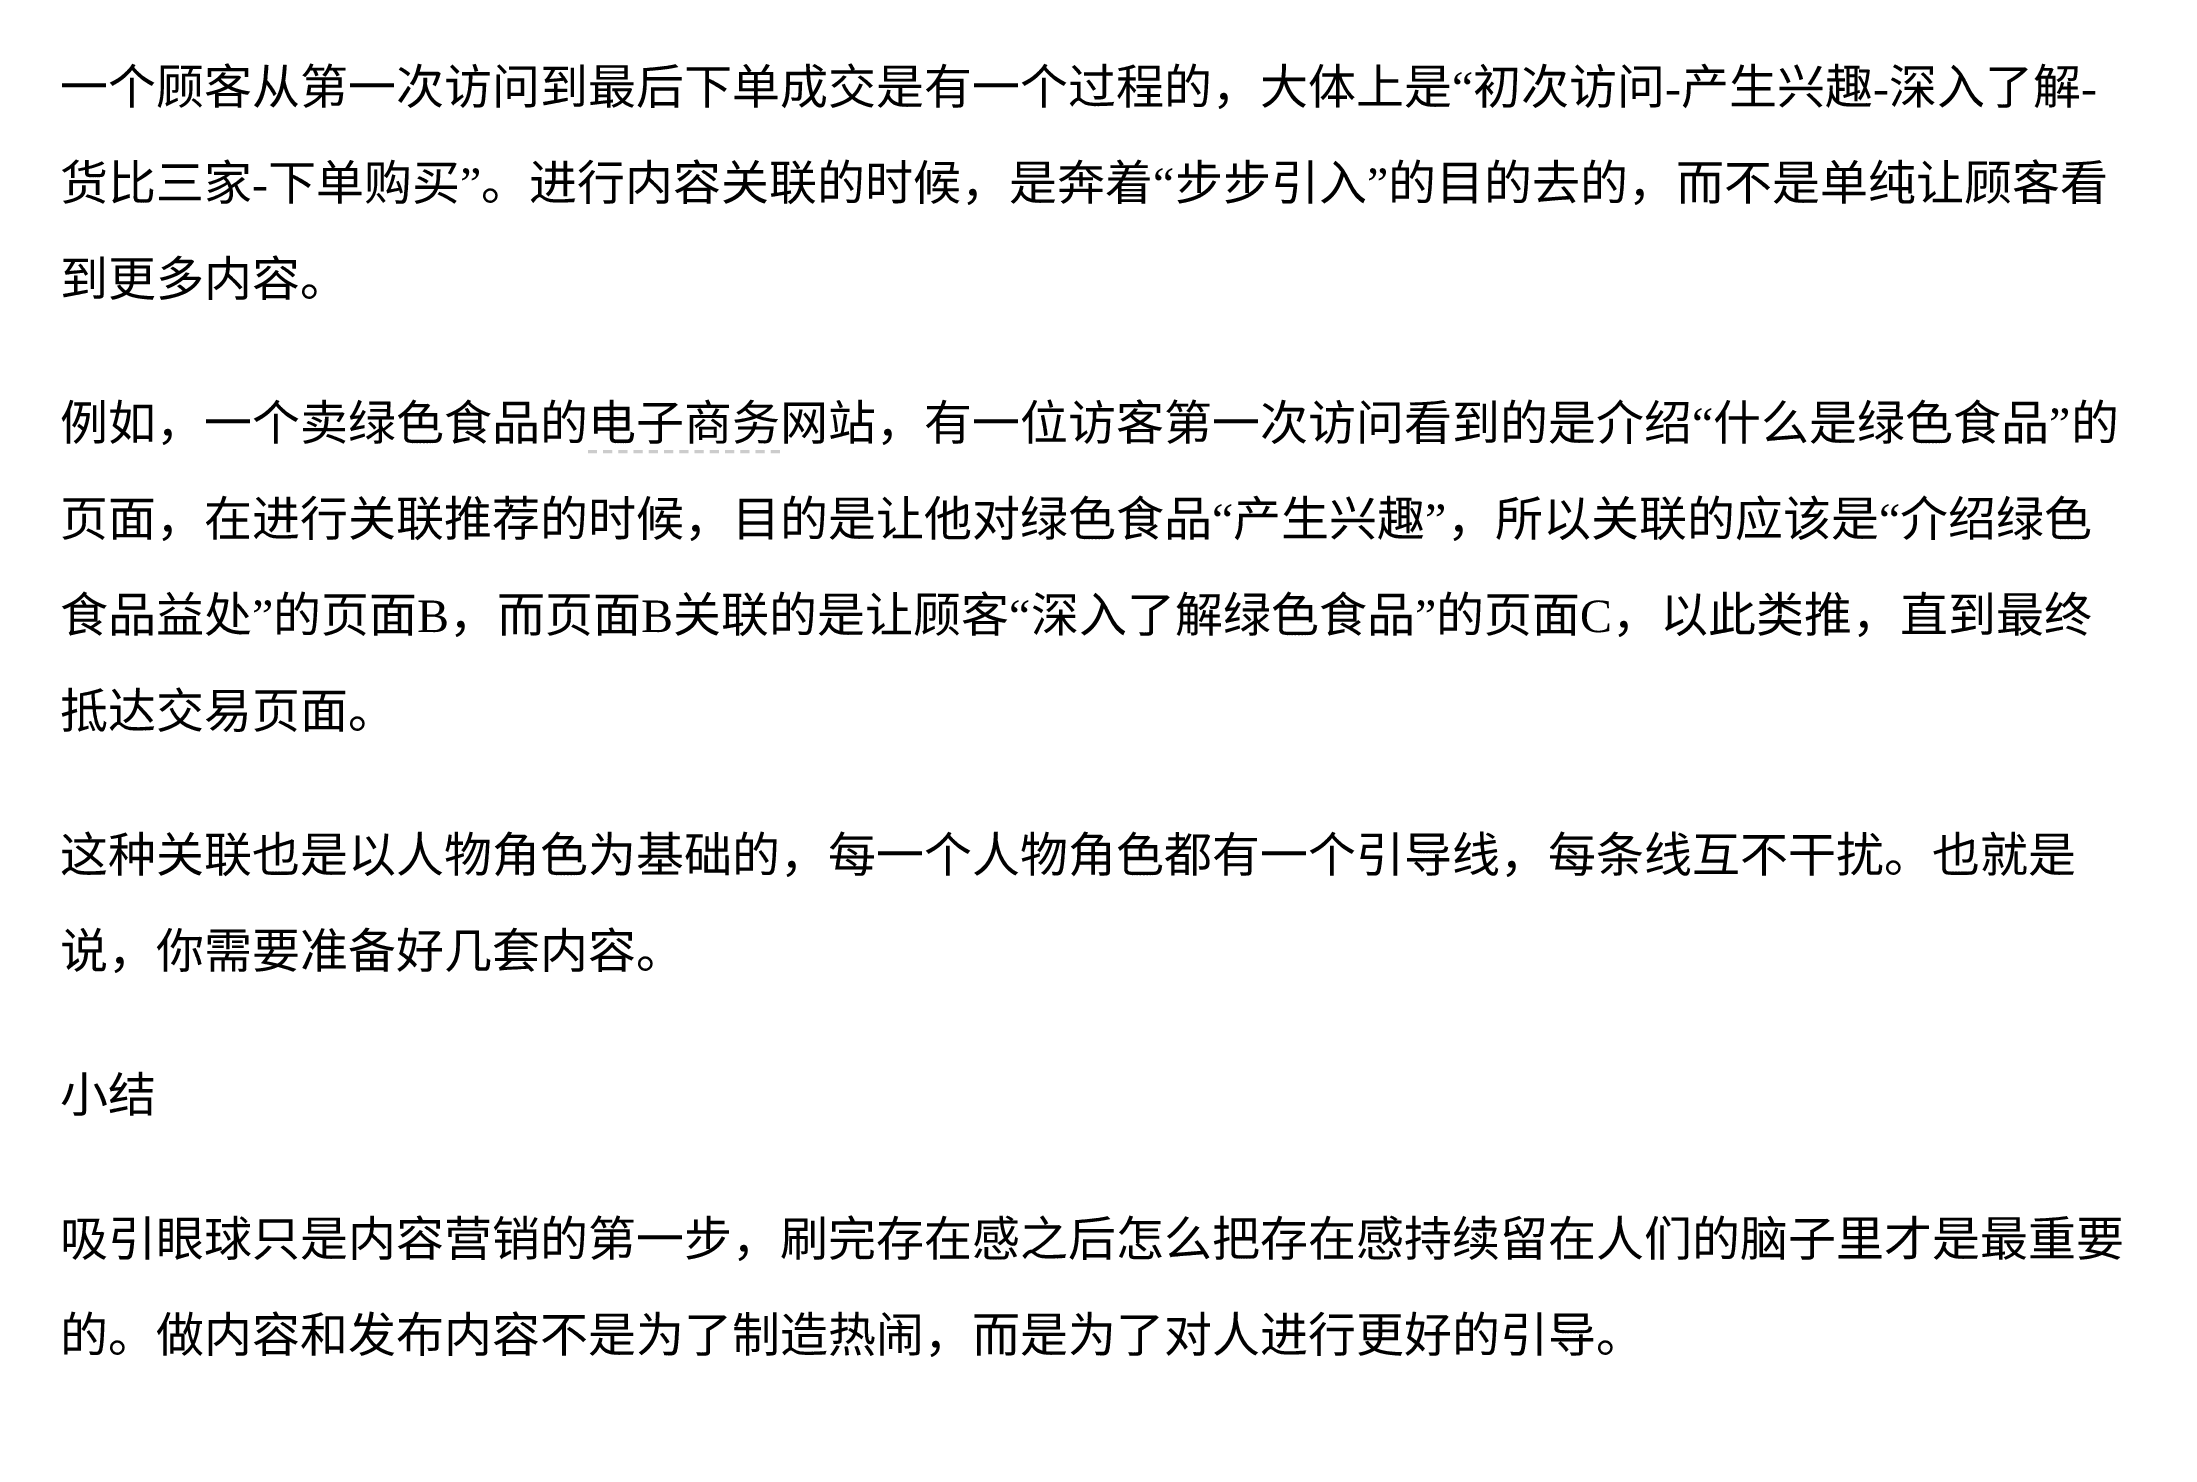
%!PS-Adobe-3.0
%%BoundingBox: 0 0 2197 1482
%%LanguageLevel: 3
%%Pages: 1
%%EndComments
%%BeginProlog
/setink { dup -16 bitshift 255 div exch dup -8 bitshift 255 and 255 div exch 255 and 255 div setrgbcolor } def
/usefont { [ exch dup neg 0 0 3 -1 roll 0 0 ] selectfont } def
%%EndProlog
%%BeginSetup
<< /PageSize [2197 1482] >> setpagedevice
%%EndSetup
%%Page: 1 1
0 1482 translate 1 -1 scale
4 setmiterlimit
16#FFFFFF setink
0 0 2197 1482 rectfill
/NotoSansCJKSC-Regular 48 usefont
16#000000 setink
60 104 moveto (一个顾客从第一次访问到最后下单成交是有一个过程的，大体上是) show
/LiberationSerif-Regular 48 usefont
1452 104 moveto (“) show
/NotoSansCJKSC-Regular 48 usefont
[
    [(初次访问) 1473 104]
    [(产生兴趣) 1681 104]
    [(深入了解) 1889 104]
] { aload pop moveto show } forall
/LiberationSerif-Regular 48 usefont
[
    [(-) 1665 104]
    [(-) 1873 104]
    [(-) 2081 104]
] { aload pop moveto show } forall
/NotoSansCJKSC-Regular 48 usefont
60 200 moveto (货比三家) show
268 200 moveto (下单购买) show
/LiberationSerif-Regular 48 usefont
460 200 moveto (”) show
/NotoSansCJKSC-Regular 48 usefont
481 200 moveto (。进行内容关联的时候，是奔着) show
/LiberationSerif-Regular 48 usefont
1153 200 moveto (“) show
/NotoSansCJKSC-Regular 48 usefont
1175 200 moveto (步步引入) show
/LiberationSerif-Regular 48 usefont
1367 200 moveto (”) show
/NotoSansCJKSC-Regular 48 usefont
1388 200 moveto (的目的去的，而不是单纯让顾客看) show
/LiberationSerif-Regular 48 usefont
252 200 moveto (-) show
/NotoSansCJKSC-Regular 48 usefont
60 296 moveto (到更多内容。) show
60 440 moveto (例如，一个卖绿色食品的电子商务网站，有一位访客第一次访问看到的是介绍) show
/LiberationSerif-Regular 48 usefont
1692 440 moveto (“) show
/NotoSansCJKSC-Regular 48 usefont
1713 440 moveto (什么是绿色食品) show
/LiberationSerif-Regular 48 usefont
2049 440 moveto (”) show
/NotoSansCJKSC-Regular 48 usefont
2071 440 moveto (的) show
16#CCCCCC setink
3 setlinewidth
[9 6.24] 0 setdash
588 451.5 moveto 780 451.5 lineto stroke
16#000000 setink
60 536 moveto (页面，在进行关联推荐的时候，目的是让他对绿色食品) show
/LiberationSerif-Regular 48 usefont
1212 536 moveto (“) show
/NotoSansCJKSC-Regular 48 usefont
1233 536 moveto (产生兴趣) show
/LiberationSerif-Regular 48 usefont
1425 536 moveto (”) show
/NotoSansCJKSC-Regular 48 usefont
1447 536 moveto (，所以关联的应该是) show
/LiberationSerif-Regular 48 usefont
1879 536 moveto (“) show
/NotoSansCJKSC-Regular 48 usefont
1900 536 moveto (介绍绿色) show
60 632 moveto (食品益处) show
/LiberationSerif-Regular 48 usefont
252 632 moveto (”) show
/NotoSansCJKSC-Regular 48 usefont
273 632 moveto (的页面) show
/LiberationSerif-Regular 48 usefont
417 632 moveto (B) show
/NotoSansCJKSC-Regular 48 usefont
449 632 moveto (，而页面) show
/LiberationSerif-Regular 48 usefont
641 632 moveto (B) show
/NotoSansCJKSC-Regular 48 usefont
673 632 moveto (关联的是让顾客) show
/LiberationSerif-Regular 48 usefont
1009 632 moveto (“) show
/NotoSansCJKSC-Regular 48 usefont
1031 632 moveto (深入了解绿色食品) show
/LiberationSerif-Regular 48 usefont
1415 632 moveto (”) show
/NotoSansCJKSC-Regular 48 usefont
1436 632 moveto (的页面) show
/LiberationSerif-Regular 48 usefont
1580 632 moveto (C) show
/NotoSansCJKSC-Regular 48 usefont
[
    [(，以此类推，直到最终) 1612 632]
    [(抵达交易页面。) 60 728]
    [(这种关联也是以人物角色为基础的，每一个人物角色都有一个引导线，每条线互不干扰。也就是) 60 872]
    [(说，你需要准备好几套内容。) 60 968]
    [(小结) 60 1112]
    [(吸引眼球只是内容营销的第一步，刷完存在感之后怎么把存在感持续留在人们的脑子里才是最重要) 60 1256]
    [(的。做内容和发布内容不是为了制造热闹，而是为了对人进行更好的引导。) 60 1352]
] { aload pop moveto show } forall
showpage
%%EOF
